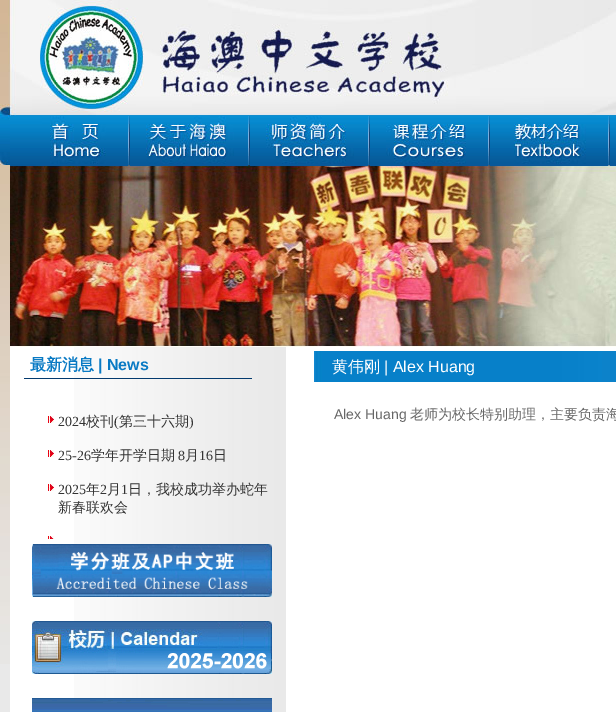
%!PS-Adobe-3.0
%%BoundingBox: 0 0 616 712
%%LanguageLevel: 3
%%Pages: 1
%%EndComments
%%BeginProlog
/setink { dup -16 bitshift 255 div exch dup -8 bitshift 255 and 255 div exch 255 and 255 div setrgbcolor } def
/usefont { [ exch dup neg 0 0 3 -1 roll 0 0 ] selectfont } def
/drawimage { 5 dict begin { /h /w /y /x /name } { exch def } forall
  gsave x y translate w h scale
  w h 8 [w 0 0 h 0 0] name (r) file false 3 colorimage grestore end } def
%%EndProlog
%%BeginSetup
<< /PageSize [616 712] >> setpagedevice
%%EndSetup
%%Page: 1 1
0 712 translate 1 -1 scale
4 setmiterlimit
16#E9E9E9 setink
0 0 616 712 rectfill
(img1.raw) 0 165 10 499 drawimage
(img2.raw) 0 0 616 165 drawimage
(img3.raw) 128 116 2 49 drawimage
(img10.raw) 10 165 606 182 drawimage
(img4.raw) 10 116 118 50 drawimage
(img3.raw) 248 116 2 49 drawimage
(img5.raw) 130 116 118 50 drawimage
(img3.raw) 368 116 2 49 drawimage
(img6.raw) 250 116 118 50 drawimage
(img3.raw) 488 116 2 49 drawimage
(img7.raw) 370 116 118 50 drawimage
(img3.raw) 608 116 2 49 drawimage
(img8.raw) 490 116 118 50 drawimage
(img9.raw) 610 116 6 50 drawimage
16#FFFFFF setink
10 347 606 365 rectfill
(img11.raw) 74 347 212 365 drawimage
16#033A6E setink
24 378 228 1 rectfill
/WenQuanYiZenHei-Bold 16 usefont
16#097AC4 setink
30 370 moveto (最新消息) show
/LiberationSans-Bold 16 usefont
98 370 moveto (| News) show
(img12.raw) 48 416 6 7 drawimage
/LiberationSerif-Regular 14 usefont
16#333333 setink
58 426 moveto (2024) show
/WenQuanYiZenHei-Medium 14 usefont
86 426 moveto (校刊) show
/LiberationSerif-Regular 14 usefont
114 426 moveto (\() show
/WenQuanYiZenHei-Medium 14 usefont
119 426 moveto (第三十六期) show
/LiberationSerif-Regular 14 usefont
189 426 moveto (\)) show
(img12.raw) 48 450 6 7 drawimage
58 460 moveto (25-26) show
/WenQuanYiZenHei-Medium 14 usefont
91 460 moveto (学年开学日期) show
/LiberationSerif-Regular 14 usefont
178 460 moveto (8) show
/WenQuanYiZenHei-Medium 14 usefont
185 460 moveto (月) show
/LiberationSerif-Regular 14 usefont
199 460 moveto (16) show
/WenQuanYiZenHei-Medium 14 usefont
213 460 moveto (日) show
(img12.raw) 48 484 6 7 drawimage
/LiberationSerif-Regular 14 usefont
58 494 moveto (2025) show
/WenQuanYiZenHei-Medium 14 usefont
86 494 moveto (年) show
/LiberationSerif-Regular 14 usefont
100 494 moveto (2) show
/WenQuanYiZenHei-Medium 14 usefont
107 494 moveto (月) show
/LiberationSerif-Regular 14 usefont
121 494 moveto (1) show
/WenQuanYiZenHei-Medium 14 usefont
128 494 moveto (日，我校成功举办蛇年) show
58 512 moveto (新春联欢会) show
(img13.raw) 48 536 6 3 drawimage
(img14.raw) 32 544 240 53 drawimage
(img15.raw) 32 621 240 53 drawimage
(img16.raw) 32 698 240 14 drawimage
(img17.raw) 314 351 302 31 drawimage
/WenQuanYiZenHei-Medium 16 usefont
16#FFFFFF setink
332 372 moveto (黄伟刚) show
/LiberationSans-Regular 16 usefont
384 372 moveto (| Alex Huang) show
/LiberationSans-Regular 14 usefont
16#666666 setink
334 419 moveto (Alex Huang) show
/WenQuanYiZenHei-Medium 14 usefont
410 419 moveto (老师为校长特别助理，主要负责海) show
showpage
%%EOF
